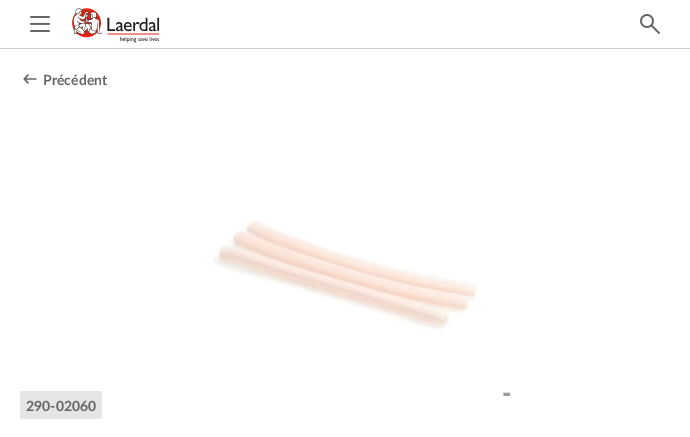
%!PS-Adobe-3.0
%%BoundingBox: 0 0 690 437
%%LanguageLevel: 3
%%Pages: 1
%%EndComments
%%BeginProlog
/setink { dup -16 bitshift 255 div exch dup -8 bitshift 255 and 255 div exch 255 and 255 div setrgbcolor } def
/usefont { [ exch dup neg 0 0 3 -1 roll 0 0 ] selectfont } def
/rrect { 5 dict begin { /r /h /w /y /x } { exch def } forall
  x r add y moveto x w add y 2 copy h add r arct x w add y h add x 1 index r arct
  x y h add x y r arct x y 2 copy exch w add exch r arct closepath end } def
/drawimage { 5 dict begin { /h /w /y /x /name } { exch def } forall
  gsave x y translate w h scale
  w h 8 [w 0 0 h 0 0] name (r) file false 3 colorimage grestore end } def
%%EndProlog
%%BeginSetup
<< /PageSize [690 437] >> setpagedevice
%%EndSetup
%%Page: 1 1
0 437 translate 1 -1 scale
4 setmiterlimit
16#FFFFFF setink
0 0 690 437 rectfill
16#CCCCCC setink
0 48 690 1 rectfill
(img1.raw) 30 16 20 16 drawimage
(img2.raw) 72 8 88 35 drawimage
(img3.raw) 640 14 20 20 drawimage
(img4.raw) 23 74 14 10 drawimage
/Lato-Bold 14 usefont
16#666666 setink
43 85 moveto (Précédent) show
(img5.raw) 213 220 297 176 drawimage
16#E5E5E5 setink
20 391 82 28 2 rrect fill
16#666666 setink
26 411 moveto (290-02060) show
showpage
%%EOF
